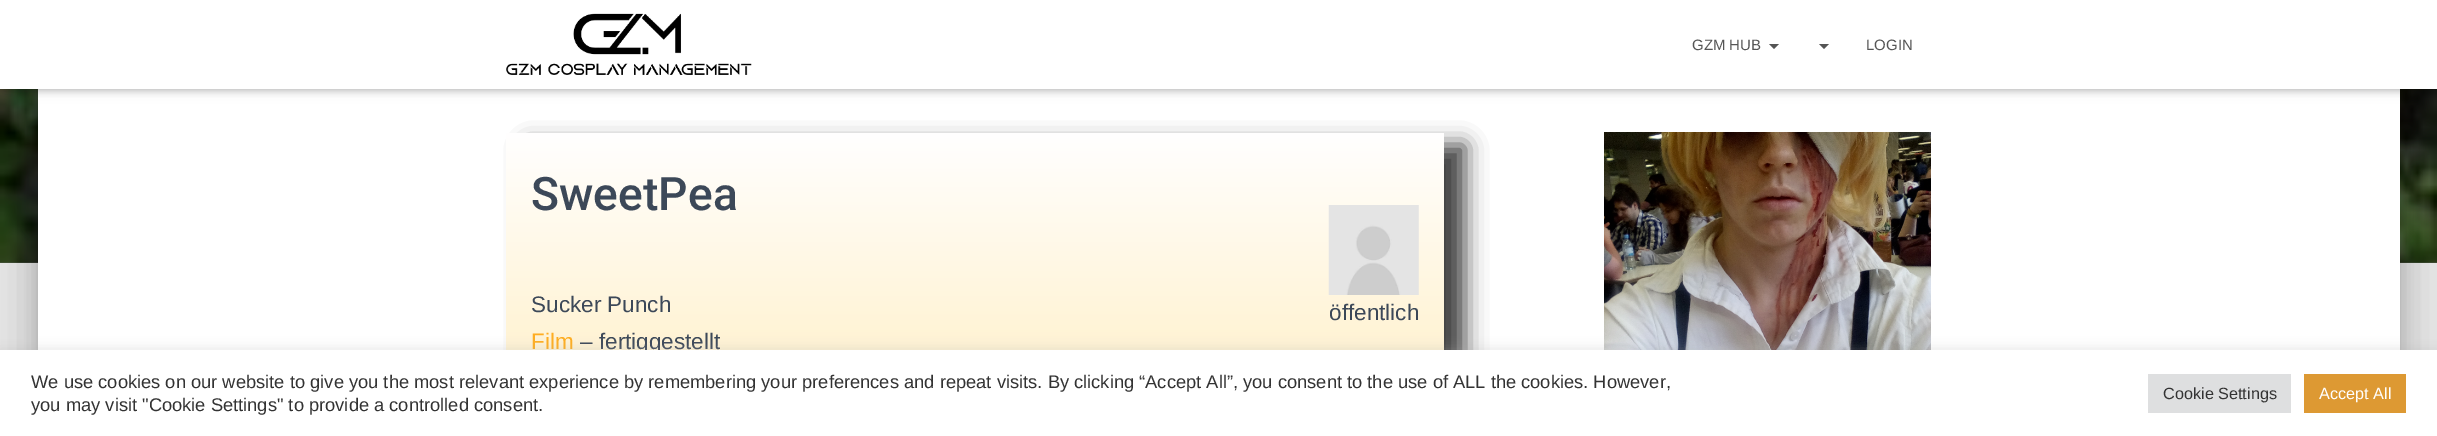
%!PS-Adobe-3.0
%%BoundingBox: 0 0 2437 436
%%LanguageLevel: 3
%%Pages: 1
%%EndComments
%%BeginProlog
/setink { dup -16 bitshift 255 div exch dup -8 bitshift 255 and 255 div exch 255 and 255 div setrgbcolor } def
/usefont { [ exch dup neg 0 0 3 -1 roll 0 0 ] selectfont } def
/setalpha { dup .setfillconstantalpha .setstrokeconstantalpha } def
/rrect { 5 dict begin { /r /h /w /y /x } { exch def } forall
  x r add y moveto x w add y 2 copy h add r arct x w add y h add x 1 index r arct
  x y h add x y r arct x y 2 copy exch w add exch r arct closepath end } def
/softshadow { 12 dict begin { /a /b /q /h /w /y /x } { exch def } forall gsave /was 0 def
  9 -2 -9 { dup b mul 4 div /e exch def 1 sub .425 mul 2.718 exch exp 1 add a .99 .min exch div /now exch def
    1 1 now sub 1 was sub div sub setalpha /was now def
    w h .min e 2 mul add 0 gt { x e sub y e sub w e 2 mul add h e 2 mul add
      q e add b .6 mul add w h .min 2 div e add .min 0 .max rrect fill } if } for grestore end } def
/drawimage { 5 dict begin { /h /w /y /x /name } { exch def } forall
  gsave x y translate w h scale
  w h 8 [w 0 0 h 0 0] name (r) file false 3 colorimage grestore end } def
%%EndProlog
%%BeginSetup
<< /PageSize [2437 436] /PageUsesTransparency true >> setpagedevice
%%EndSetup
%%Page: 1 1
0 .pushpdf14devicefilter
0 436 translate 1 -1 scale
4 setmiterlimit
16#E5E5E5 setink
0 0 2437 436 rectfill
(img2.raw) 0 89 2437 174 drawimage
16#000000 setink
44 43 2350 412 1 6 0.2 softshadow
31 28 2375 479 14 19 0.12 softshadow
35 44 2368 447 10 15 0.14 softshadow
16#FFFFFF setink
38 89 2362 261 rectfill
16#000000 setink
3 8 2432 83 0 3 0.1 softshadow
0 1 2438 89 0 6 0.12 softshadow
8 9 2422 74 0 6 0.42 softshadow
16#FFFFFF setink
0 0 2437 89 rectfill
(img1.raw) 506 13 246 62 drawimage
/LiberationSans-Regular 15 usefont
16#555555 setink
1692 50 moveto (GZM HUB) show
1769 44 moveto 1779 44 lineto 1774 49 lineto closepath 1819 44 moveto 1829 44 lineto 1824 49 lineto closepath fill
1866 50 moveto (LOGIN) show
16#000000 setink
528 145 937 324 0 11 0.75 softshadow
gsave 506 133 moveto 1444 133 lineto 1444 350 lineto 506 350 lineto closepath clip newpath
<< /ShadingType 2 /ColorSpace /DeviceRGB /Coords [975 132 975 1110] /Extend [true true] /Function << /FunctionType 3 /Domain [0 1] /Functions [<< /FunctionType 2 /Domain [0 1] /C0 [1 1 1] /C1 [1 0.812 0.329] /N 1 >> << /FunctionType 2 /Domain [0 1] /C0 [1 0.812 0.329] /C1 [1 0.859 0.498] /N 1 >> << /FunctionType 2 /Domain [0 1] /C0 [1 0.859 0.498] /C1 [1 0.945 0.812] /N 1 >>] /Bounds [0.86 0.87] /Encode [0 1 0 1 0 1] >> >> shfill grestore
/Roboto-Medium 46.25 usefont
16#3C4858 setink
531 210 moveto (SweetPea) show
/LiberationSans-Regular 22.5 usefont
531 312 moveto (Sucker Punch) show
16#FFAD21 setink
531 349 moveto (Film) show
16#3C4858 setink
580 349 moveto (– fertiggestellt) show
(img3.raw) 1328 205 91 90 drawimage
1329 320 moveto (öffentlich) show
(img4.raw) 1604 132 327 218 drawimage
16#ACABAB setink
0 349 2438 86 0 6 0.3 softshadow
16#FFFFFF setink
0 350 2437 86 rectfill
/LiberationSans-Regular 18.33 usefont
16#333333 setink
31 388 moveto (We use cookies on our website to give you the most relevant experience by remembering your preferences and repeat visits. By clicking “Accept All”, you consent to the use of ALL the cookies. However,) show
31 411 moveto (you may visit "Cookie Settings" to provide a controlled consent.) show
16#DEDFE0 setink
2148 374 143 39 rectfill
/LiberationSans-Regular 16.25 usefont
16#333333 setink
2163 399 moveto (Cookie Settings) show
16#DD9933 setink
2304 374 102 39 rectfill
16#FFFFFF setink
2319 399 moveto (Accept All) show
.poppdf14devicefilter showpage
%%EOF
